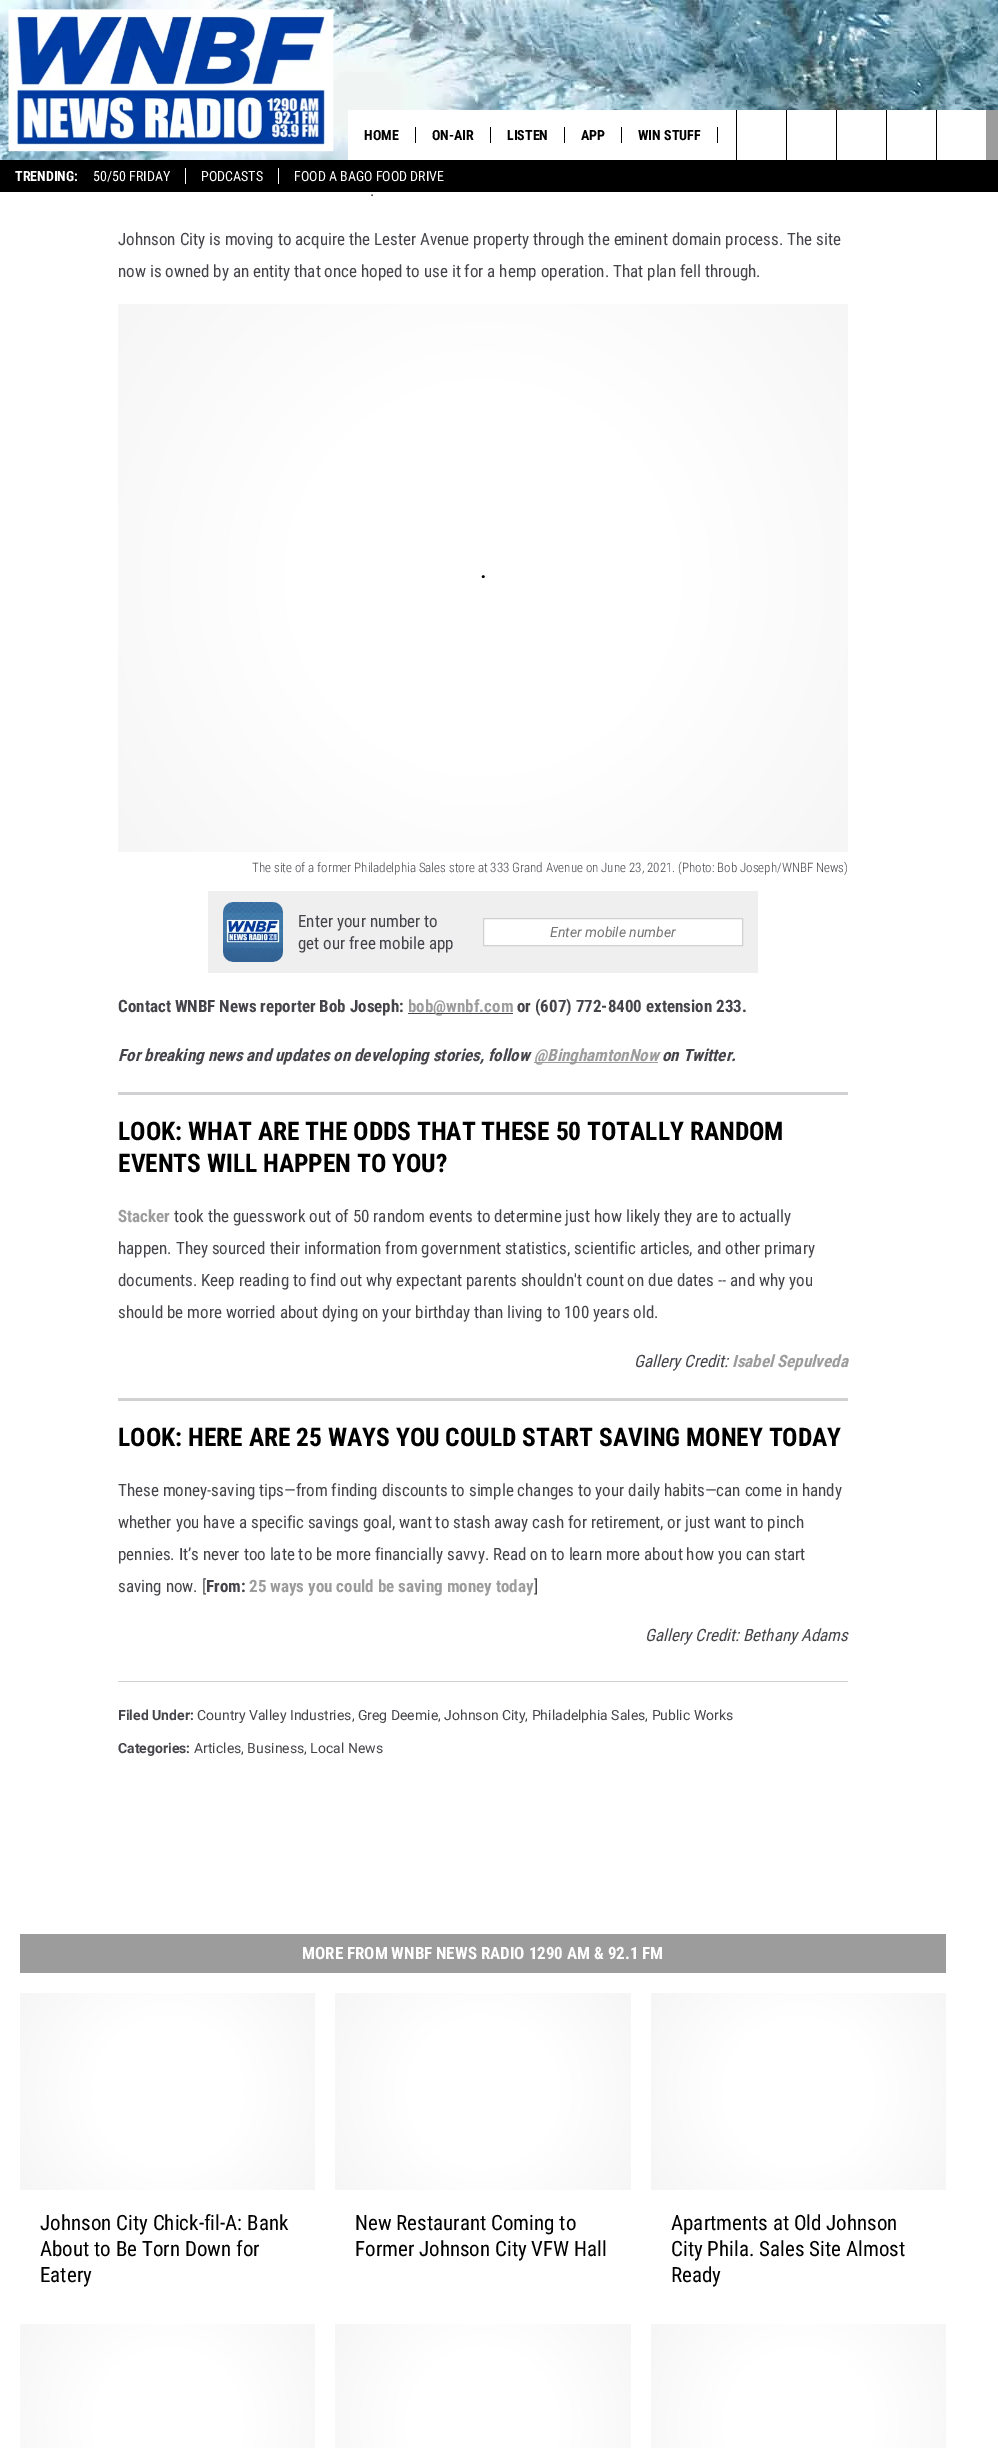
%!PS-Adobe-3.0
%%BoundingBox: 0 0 998 2448
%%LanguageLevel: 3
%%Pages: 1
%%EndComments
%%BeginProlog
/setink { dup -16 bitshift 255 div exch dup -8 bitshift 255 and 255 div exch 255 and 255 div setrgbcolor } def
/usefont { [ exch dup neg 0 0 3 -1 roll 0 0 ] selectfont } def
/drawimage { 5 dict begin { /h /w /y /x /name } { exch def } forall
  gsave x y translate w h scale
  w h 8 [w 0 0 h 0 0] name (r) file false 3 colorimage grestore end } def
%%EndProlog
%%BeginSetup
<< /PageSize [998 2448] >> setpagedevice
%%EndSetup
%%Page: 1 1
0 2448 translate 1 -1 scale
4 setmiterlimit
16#FFFFFF setink
0 0 998 2448 rectfill
(img1.raw) 0 0 998 160 drawimage
(img2.raw) 8 9 326 143 drawimage
348 110 388 50 rectfill
/RobotoCondensed-Bold 14 usefont
16#000000 setink
364 140 moveto (HOME) show
415 127 1 16 rectfill
432 140 moveto (ON-AIR) show
490 127 1 16 rectfill
507 140 moveto (LISTEN) show
564 127 1 16 rectfill
581 140 moveto (APP) show
621 127 1 16 rectfill
638 140 moveto (WIN STUFF) show
[
    [717 127 1 16 16#000000]
    [737 110 49 50 16#FFFFFF]
    [736 110 1 50 16#000000]
    [787 110 199 50 16#FFFFFF]
    [786 110 1 50 16#000000]
    [836 110 1 50 16#000000]
    [886 110 1 50 16#000000]
    [936 110 1 50 16#000000]
    [986 110 12 50 16#9C9C9C]
    [0 160 998 32 16#000000]
] { aload pop setink rectfill } forall
16#FFFFFF setink
15 181 moveto (TRENDING:) show
/RobotoCondensed-Regular 14 usefont
93 181 moveto (50/50 FRIDAY) show
201 181 moveto (PODCASTS) show
185 168 1 16 rectfill
294 181 moveto (FOOD A BAGO FOOD DRIVE) show
278 168 1 16 rectfill
/RobotoCondensed-Regular 17 usefont
16#45444A setink
[
    [(.) 370 196]
    [(Johnson City is moving to acquire the Lester Avenue property through the eminent domain process. The site) 118 245]
    [(now is owned by an entity that once hoped to use it for a hemp operation. That plan fell through.) 118 277]
] { aload pop moveto show } forall
gsave 118 304 moveto 848 304 lineto 848 852 lineto 118 852 lineto closepath clip newpath 483 578 translate 456 456 scale
<< /ShadingType 3 /ColorSpace /DeviceRGB /Coords [0 0 0 0 0 1] /Extend [true true] /Function << /FunctionType 3 /Domain [0 1] /Functions [<< /FunctionType 2 /Domain [0 1] /C0 [1 1 1] /C1 [1 1 1] /N 1 >> << /FunctionType 2 /Domain [0 1] /C0 [1 1 1] /C1 [0.965 0.965 0.969] /N 1 >>] /Bounds [0.4] /Encode [0 1 0 1] >> >> shfill grestore
16#000000 setink
2.4 setlinewidth
1 setlinecap
483 576.5 moveto 483.5 576.5 lineto stroke
/RobotoCondensed-Light 13 usefont
16#45444A setink
252 872 moveto (The site of a former Philadelphia Sales store at 333 Grand Avenue on June 23, 2021. \(Photo: Bob Joseph/WNBF News\)) show
16#EFEFEF setink
208 891 550 82 rectfill
(img3.raw) 223 902 60 60 drawimage
/RobotoCondensed-Regular 17 usefont
16#45444A setink
298 927 moveto (Enter your number to) show
298 949 moveto (get our free mobile app) show
16#FFFFFF setink
483.5 918.5 moveto 742.5 918.5 lineto 742.5 945.5 lineto 483.5 945.5 lineto closepath gsave fill grestore
16#D1D0D2 setink
1 setlinewidth
0 setlinecap
stroke
/Roboto-Italic 14 usefont
16#757575 setink
550 937 moveto (Enter mobile number) show
/RobotoCondensed-Bold 17 usefont
16#45444A setink
118 1012 moveto (Contact WNBF News reporter Bob Joseph:) show
408 1013 105 1 rectfill
16#9C9C9C setink
408 1012 moveto (bob@wnbf.com) show
16#45444A setink
517 1012 moveto (or \(607\) 772-8400 extension 233.) show
/RobotoCondensed-BoldItalic 17 usefont
118 1061 moveto (For breaking news and updates on developing stories, follow) show
16#9C9C9C setink
534 1062 124 1 rectfill
534 1061 moveto (@BinghamtonNow) show
16#45444A setink
662 1061 moveto (on Twitter.) show
16#D1D0D2 setink
118 1092 730 3 rectfill
/RobotoCondensed-Bold 25.5 usefont
16#000000 setink
118 1140 moveto (LOOK: WHAT ARE THE ODDS THAT THESE 50 TOTALLY RANDOM) show
118 1172 moveto (EVENTS WILL HAPPEN TO YOU?) show
/RobotoCondensed-Bold 17 usefont
16#9C9C9C setink
118 1222 moveto (Stacker) show
/RobotoCondensed-Regular 17 usefont
16#45444A setink
[
    [(took the guesswork out of 50 random events to determine just how likely they are to actually) 174 1222]
    [(happen. They sourced their information from government statistics, scientific articles, and other primary) 118 1254]
    [(documents. Keep reading to find out why expectant parents shouldn't count on due dates -- and why you) 118 1286]
    [(should be more worried about dying on your birthday than living to 100 years old.) 118 1318]
] { aload pop moveto show } forall
/RobotoCondensed-Italic 17 usefont
634 1367 moveto (Gallery Credit:) show
/RobotoCondensed-BoldItalic 17 usefont
16#9C9C9C setink
732 1367 moveto (Isabel Sepulveda) show
16#D1D0D2 setink
118 1398 730 3 rectfill
/RobotoCondensed-Bold 25.5 usefont
16#000000 setink
118 1446 moveto (LOOK: HERE ARE 25 WAYS YOU COULD START SAVING MONEY TODAY) show
/RobotoCondensed-Regular 17 usefont
16#45444A setink
[
    [(These money-saving tips—from finding discounts to simple changes to your daily habits—can come in handy) 118 1496]
    [(whether you have a specific savings goal, want to stash away cash for retirement, or just want to pinch) 118 1528]
    [(pennies. It’s never too late to be more financially savvy. Read on to learn more about how you can start) 118 1560]
    [(saving now. [) 118 1592]
] { aload pop moveto show } forall
/RobotoCondensed-Bold 17 usefont
206 1592 moveto (From:) show
16#9C9C9C setink
249 1592 moveto (25 ways you could be saving money today) show
/RobotoCondensed-Regular 17 usefont
16#45444A setink
534 1592 moveto (]) show
/RobotoCondensed-Italic 17 usefont
645 1641 moveto (Gallery Credit: Bethany Adams) show
16#D1D0D2 setink
118 1681 730 1 rectfill
/Roboto-Bold 14 usefont
16#45444A setink
118 1720 moveto (Filed Under:) show
/Roboto-Regular 14 usefont
197 1720 moveto (Country Valley Industries, Greg Deemie, Johnson City, Philadelphia Sales, Public Works) show
/Roboto-Bold 14 usefont
118 1753 moveto (Categories:) show
/Roboto-Regular 14 usefont
194 1753 moveto (Articles, Business, Local News) show
16#9C9C9C setink
20 1934 926 39 rectfill
/RobotoCondensed-Bold 17 usefont
16#FFFFFF setink
302 1959 moveto (MORE FROM WNBF NEWS RADIO 1290 AM & 92.1 FM) show
gsave 20 1993 moveto 315 1993 lineto 315 2190 lineto 20 2190 lineto closepath clip newpath 168 2092 translate 177 177 scale
<< /ShadingType 3 /ColorSpace /DeviceRGB /Coords [0 0 0 0 0 1] /Extend [true true] /Function << /FunctionType 3 /Domain [0 1] /Functions [<< /FunctionType 2 /Domain [0 1] /C0 [1 1 1] /C1 [1 1 1] /N 1 >> << /FunctionType 2 /Domain [0 1] /C0 [1 1 1] /C1 [0.965 0.965 0.965] /N 1 >>] /Bounds [0.4] /Encode [0 1 0 1] >> >> shfill grestore
/RobotoCondensed-Regular 21 usefont
16#000000 setink
[
    [(Johnson City Chick-fil-A: Bank) 40 2230]
    [(About to Be Torn Down for) 40 2256]
    [(Eatery) 40 2282]
] { aload pop moveto show } forall
gsave 335 1993 moveto 631 1993 lineto 631 2190 lineto 335 2190 lineto closepath clip newpath 483 2092 translate 178 178 scale
<< /ShadingType 3 /ColorSpace /DeviceRGB /Coords [0 0 0 0 0 1] /Extend [true true] /Function << /FunctionType 3 /Domain [0 1] /Functions [<< /FunctionType 2 /Domain [0 1] /C0 [1 1 1] /C1 [1 1 1] /N 1 >> << /FunctionType 2 /Domain [0 1] /C0 [1 1 1] /C1 [0.965 0.965 0.965] /N 1 >>] /Bounds [0.4] /Encode [0 1 0 1] >> >> shfill grestore
355 2230 moveto (New Restaurant Coming to) show
355 2256 moveto (Former Johnson City VFW Hall) show
gsave 651 1993 moveto 946 1993 lineto 946 2190 lineto 651 2190 lineto closepath clip newpath 799 2092 translate 177 177 scale
<< /ShadingType 3 /ColorSpace /DeviceRGB /Coords [0 0 0 0 0 1] /Extend [true true] /Function << /FunctionType 3 /Domain [0 1] /Functions [<< /FunctionType 2 /Domain [0 1] /C0 [1 1 1] /C1 [1 1 1] /N 1 >> << /FunctionType 2 /Domain [0 1] /C0 [1 1 1] /C1 [0.965 0.965 0.965] /N 1 >>] /Bounds [0.4] /Encode [0 1 0 1] >> >> shfill grestore
[
    [(Apartments at Old Johnson) 671 2230]
    [(City Phila. Sales Site Almost) 671 2256]
    [(Ready) 671 2282]
] { aload pop moveto show } forall
gsave 20 2324 moveto 315 2324 lineto 315 2448 lineto 20 2448 lineto closepath clip newpath 168 2423 translate 177 177 scale
<< /ShadingType 3 /ColorSpace /DeviceRGB /Coords [0 0 0 0 0 1] /Extend [true true] /Function << /FunctionType 3 /Domain [0 1] /Functions [<< /FunctionType 2 /Domain [0 1] /C0 [1 1 1] /C1 [1 1 1] /N 1 >> << /FunctionType 2 /Domain [0 1] /C0 [1 1 1] /C1 [0.965 0.965 0.965] /N 1 >>] /Bounds [0.4] /Encode [0 1 0 1] >> >> shfill grestore
gsave 335 2324 moveto 631 2324 lineto 631 2448 lineto 335 2448 lineto closepath clip newpath 483 2423 translate 178 178 scale
<< /ShadingType 3 /ColorSpace /DeviceRGB /Coords [0 0 0 0 0 1] /Extend [true true] /Function << /FunctionType 3 /Domain [0 1] /Functions [<< /FunctionType 2 /Domain [0 1] /C0 [1 1 1] /C1 [1 1 1] /N 1 >> << /FunctionType 2 /Domain [0 1] /C0 [1 1 1] /C1 [0.965 0.965 0.965] /N 1 >>] /Bounds [0.4] /Encode [0 1 0 1] >> >> shfill grestore
gsave 651 2324 moveto 946 2324 lineto 946 2448 lineto 651 2448 lineto closepath clip newpath 799 2423 translate 177 177 scale
<< /ShadingType 3 /ColorSpace /DeviceRGB /Coords [0 0 0 0 0 1] /Extend [true true] /Function << /FunctionType 3 /Domain [0 1] /Functions [<< /FunctionType 2 /Domain [0 1] /C0 [1 1 1] /C1 [1 1 1] /N 1 >> << /FunctionType 2 /Domain [0 1] /C0 [1 1 1] /C1 [0.965 0.965 0.965] /N 1 >>] /Bounds [0.4] /Encode [0 1 0 1] >> >> shfill grestore
showpage
%%EOF
